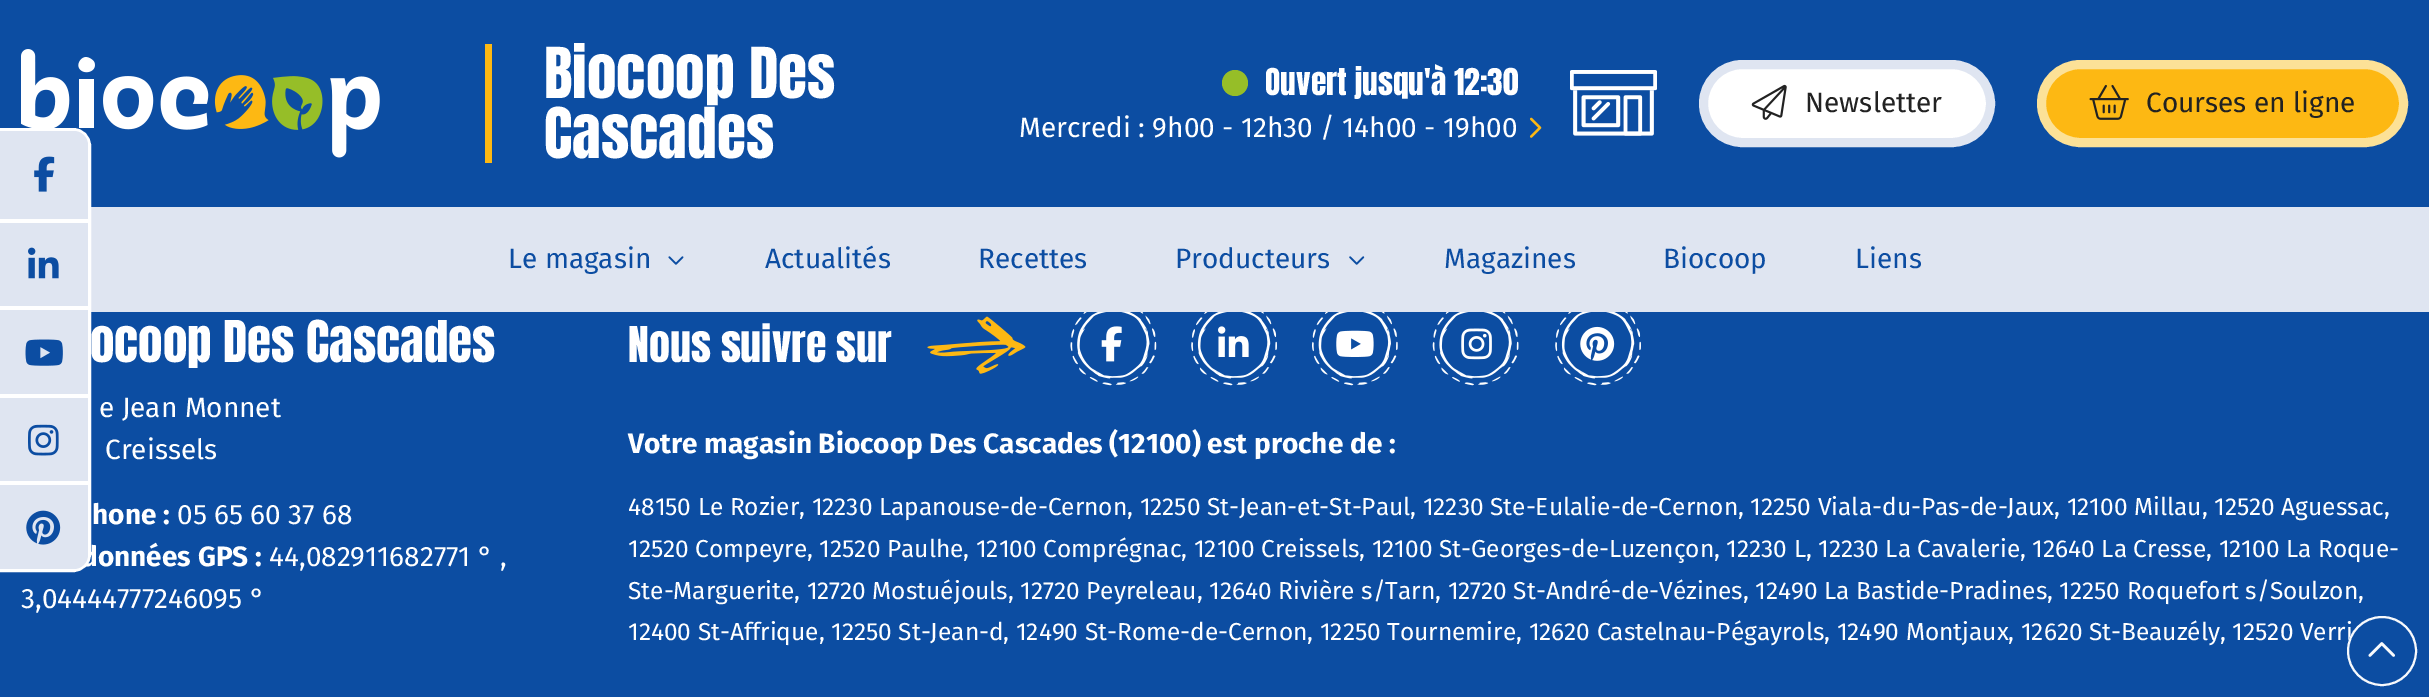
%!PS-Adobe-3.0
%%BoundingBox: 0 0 2429 697
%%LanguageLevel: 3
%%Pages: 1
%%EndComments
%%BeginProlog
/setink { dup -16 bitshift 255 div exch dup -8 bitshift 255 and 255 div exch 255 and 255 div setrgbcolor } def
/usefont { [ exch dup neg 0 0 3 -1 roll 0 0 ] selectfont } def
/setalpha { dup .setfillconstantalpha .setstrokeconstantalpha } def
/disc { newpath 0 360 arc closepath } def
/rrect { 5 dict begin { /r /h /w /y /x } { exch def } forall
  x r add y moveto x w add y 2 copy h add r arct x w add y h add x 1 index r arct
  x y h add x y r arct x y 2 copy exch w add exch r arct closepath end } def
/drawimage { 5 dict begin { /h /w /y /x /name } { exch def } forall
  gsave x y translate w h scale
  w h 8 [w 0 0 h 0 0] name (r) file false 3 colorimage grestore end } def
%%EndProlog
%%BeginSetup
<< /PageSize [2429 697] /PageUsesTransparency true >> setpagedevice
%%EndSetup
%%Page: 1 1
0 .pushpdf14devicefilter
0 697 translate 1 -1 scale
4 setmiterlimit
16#0C4DA2 setink
0 0 2429 697 rectfill
(img1.raw) 21 49 359 109 drawimage
16#FDB813 setink
485 44 7 119 rectfill
/Anton-Regular 59.5 usefont
16#FFFFFF setink
544 98 moveto (Biocoop Des) show
544 158 moveto (Cascades) show
16#96BE28 setink
1235 83 13 disc fill
/Anton-Regular 31.5 usefont
16#FFFFFF setink
1265 95 moveto (Ouvert jusqu'à 12:30) show
(img2.raw) 1570 70 87 66 drawimage
/FiraSans-Regular 28 usefont
1019 137 moveto (Mercredi : 9h00 - 12h30 / 14h00 - 19h00) show
(img3.raw) 1529 117 13 21 drawimage
1703.5 64.5 287 78 39 rrect gsave fill grestore
16#DFE5F1 setink
9 setlinewidth
stroke
(img4.raw) 1751 84 36 36 drawimage
16#222222 setink
1805 112 moveto (Newsletter) show
16#FDB813 setink
2041.5 64.5 362 78 39 rrect gsave fill grestore
16#FCE197 setink
stroke
(img5.raw) 2089 84 40 36 drawimage
16#222222 setink
2146 112 moveto (Courses en ligne) show
16#DFE5F1 setink
91 207 2338 105 rectfill
16#0C4DA2 setink
508 268 moveto (Le magasin) show
(img6.raw) 668 256 16 9 drawimage
[
    [(Actualités) 765 268]
    [(Recettes) 978 268]
    [(Producteurs) 1175 268]
] { aload pop moveto show } forall
(img7.raw) 1349 256 16 9 drawimage
[
    [(Magazines) 1444 268]
    [(Biocoop) 1663 268]
    [(Liens) 1855 268]
] { aload pop moveto show } forall
/FiraSans-Regular 24.5 usefont
16#FFFFFF setink
628 640 moveto (12400 St-Affrique, 12250 St-Jean-d, 12490 St-Rome-de-Cernon, 12250 Tournemire, 12620 Castelnau-Pégayrols, 12490 Montjaux, 12620 St-Beauzély, 12520 Verri) show
0.97 setalpha
16#0C4DA2 setink
2382 651 35 disc fill
16#FFFFFF setink
2 setlinewidth
2382 651 34 disc stroke
1 setalpha
(img8.raw) 2368 642 27 15 drawimage
4 setlinewidth
-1 130 moveto 73 130 lineto 82 130 89 137 89 146 curveto 89 554 lineto 89 563 82 570 73 570 curveto -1 570 lineto closepath stroke
16#DFE5F1 setink
0 131 moveto 74 131 lineto 81.5 131 88 137.5 88 145 curveto 88 219 lineto 0 219 lineto closepath fill
(img9.raw) 34 156 21 36 drawimage
0 223 88 83 rectfill
16#FFFFFF setink
0 219 88 4 rectfill
(img10.raw) 28 247 31 32 drawimage
16#DFE5F1 setink
0 310 88 84 rectfill
16#FFFFFF setink
0 306 88 4 rectfill
(img11.raw) 25 339 38 27 drawimage
16#DFE5F1 setink
0 398 88 83 rectfill
16#FFFFFF setink
0 394 88 4 rectfill
(img12.raw) 28 424 31 32 drawimage
/FiraSans-Bold 28 usefont
81 566 moveto (données GPS :) show
16#DFE5F1 setink
0 485 moveto 88 485 lineto 88 555 lineto 88 562.5 81.5 569 74 569 curveto 0 569 lineto closepath fill
16#FFFFFF setink
0 481 88 4 rectfill
(img13.raw) 26 510 35 35 drawimage
/Anton-Regular 49 usefont
90 362 moveto (ocoop Des Cascades) show
/FiraSans-Regular 28 usefont
99 417 moveto (e Jean Monnet) show
105 459 moveto (Creissels) show
/FiraSans-Bold 28 usefont
92 524 moveto (hone :) show
/FiraSans-Regular 28 usefont
[
    [(05 65 60 37 68) 177 524]
    [(44,082911682771 ° ,) 269 566]
    [(3,04444777246095 °) 21 608]
] { aload pop moveto show } forall
/Anton-Regular 42 usefont
628 362 moveto (Nous suivre sur) show
(img14.raw) 927 316 99 58 drawimage
(img15.raw) 1070 312 87 74 drawimage
(img16.raw) 1101 326 21 36 drawimage
(img17.raw) 1191 312 86 74 drawimage
(img18.raw) 1218 326 31 31 drawimage
(img19.raw) 1312 312 86 74 drawimage
(img20.raw) 1336 330 38 27 drawimage
(img21.raw) 1432 312 87 74 drawimage
(img22.raw) 1461 328 31 32 drawimage
(img17.raw) 1555 312 86 74 drawimage
(img23.raw) 1580 326 35 35 drawimage
/FiraSans-Bold 28 usefont
628 453 moveto (Votre magasin Biocoop Des Cascades \(12100\) est proche de :) show
/FiraSans-Regular 24.5 usefont
[
    [(48150 Le Rozier, 12230 Lapanouse-de-Cernon, 12250 St-Jean-et-St-Paul, 12230 Ste-Eulalie-de-Cernon, 12250 Viala-du-Pas-de-Jaux, 12100 Millau, 12520 Aguessac,) 628 515]
    [(12520 Compeyre, 12520 Paulhe, 12100 Comprégnac, 12100 Creissels, 12100 St-Georges-de-Luzençon, 12230 L, 12230 La Cavalerie, 12640 La Cresse, 12100 La Roque-) 628 557]
    [(Ste-Marguerite, 12720 Mostuéjouls, 12720 Peyreleau, 12640 Rivière s/Tarn, 12720 St-André-de-Vézines, 12490 La Bastide-Pradines, 12250 Roquefort s/Soulzon,) 628 599]
] { aload pop moveto show } forall
.poppdf14devicefilter showpage
%%EOF
